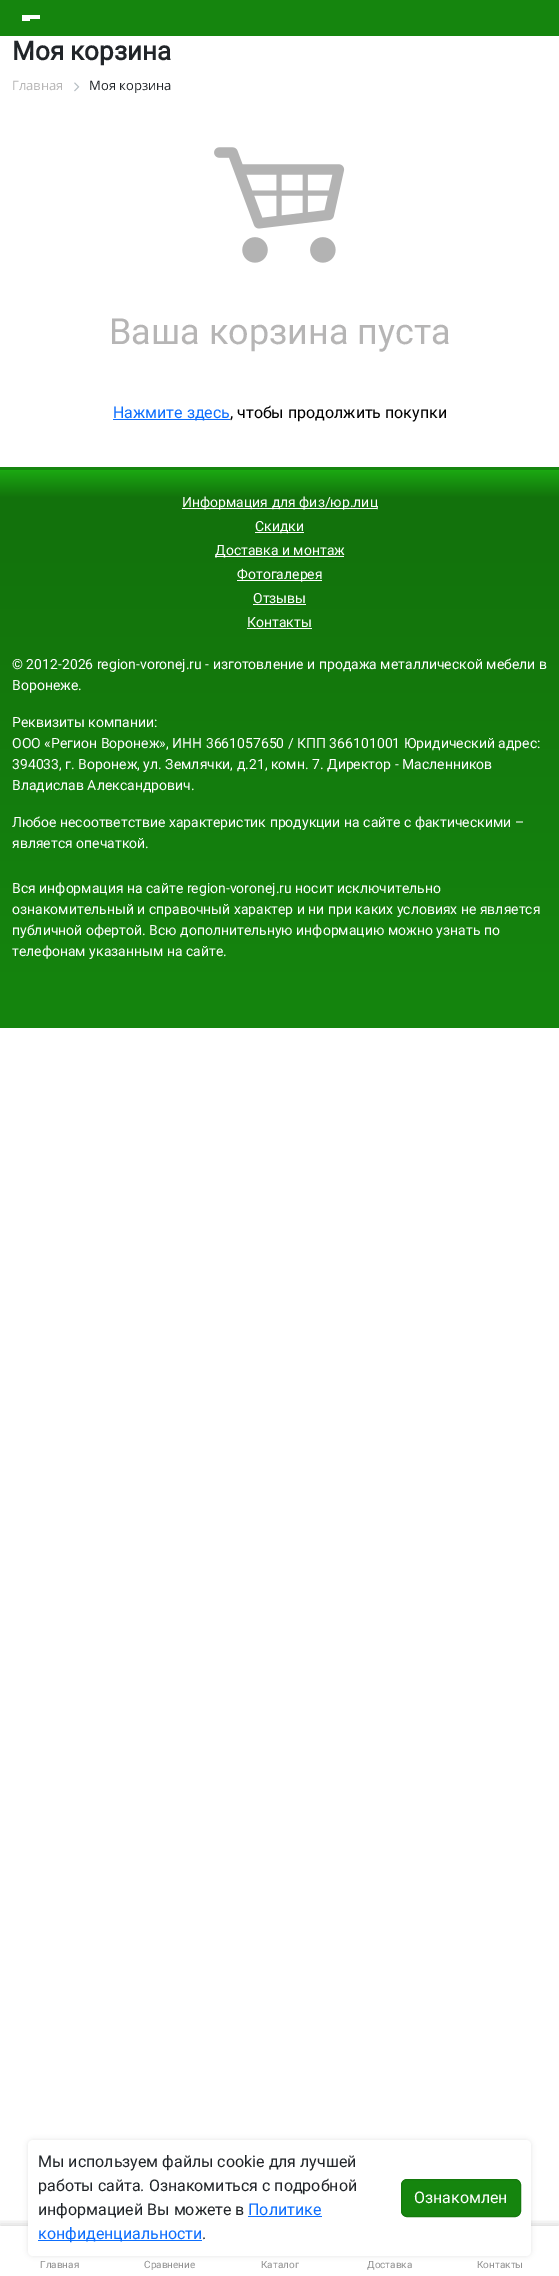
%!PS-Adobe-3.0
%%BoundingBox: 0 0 559 2276
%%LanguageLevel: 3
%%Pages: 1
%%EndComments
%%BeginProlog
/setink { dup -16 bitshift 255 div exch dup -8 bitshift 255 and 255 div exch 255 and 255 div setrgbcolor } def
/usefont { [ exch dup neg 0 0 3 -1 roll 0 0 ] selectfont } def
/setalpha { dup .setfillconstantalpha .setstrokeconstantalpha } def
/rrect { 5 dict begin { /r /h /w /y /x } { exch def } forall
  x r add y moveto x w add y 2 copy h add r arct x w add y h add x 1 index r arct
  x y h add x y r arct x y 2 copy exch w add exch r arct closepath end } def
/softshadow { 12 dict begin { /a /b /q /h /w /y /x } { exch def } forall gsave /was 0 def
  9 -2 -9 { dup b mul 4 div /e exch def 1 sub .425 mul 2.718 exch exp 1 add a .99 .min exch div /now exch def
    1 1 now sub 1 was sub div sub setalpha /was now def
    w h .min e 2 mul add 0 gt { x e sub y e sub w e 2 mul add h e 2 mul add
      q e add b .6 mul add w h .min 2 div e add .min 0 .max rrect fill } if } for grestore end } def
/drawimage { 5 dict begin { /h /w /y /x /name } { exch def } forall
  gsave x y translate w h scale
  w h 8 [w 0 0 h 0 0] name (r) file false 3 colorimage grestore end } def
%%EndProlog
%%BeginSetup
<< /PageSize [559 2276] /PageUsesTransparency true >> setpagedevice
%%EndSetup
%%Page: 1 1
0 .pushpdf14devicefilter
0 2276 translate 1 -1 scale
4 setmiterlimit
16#FFFFFF setink
0 0 559 2276 rectfill
[
    [0 0 559 36 16#15850E]
    [22 15 18 4 16#FFFFFF]
    [22 19 8 2 16#FFFFFF]
] { aload pop setink rectfill } forall
/Roboto-Bold 26 usefont
16#212529 setink
12 60 moveto (Моя корзина) show
/OpenSans-Regular 13 usefont
16#B6B5B5 setink
12 90 moveto (Главная) show
(img1.raw) 74 82 6 10 drawimage
16#212529 setink
89 90 moveto (Моя корзина) show
(img2.raw) 214 147 131 116 drawimage
/Roboto-Regular 36 usefont
16#B6B5B5 setink
109 344 moveto (Ваша корзина пуста) show
16#0D6EFD setink
113 419 117 1 rectfill
/Roboto-Regular 16 usefont
113 418 moveto (Нажмите здесь) show
16#000000 setink
230 418 moveto (, чтобы продолжить покупки) show
gsave 0 467 moveto 559 467 lineto 559 470 lineto 0 470 lineto closepath clip newpath
<< /ShadingType 2 /ColorSpace /DeviceRGB /Coords [280 470 280 -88] /Extend [true true] /Function << /FunctionType 3 /Domain [0 1] /Functions [<< /FunctionType 2 /Domain [0 1] /C0 [0.082 0.522 0.055] /C1 [0.071 0.447 0.047] /N 1 >> << /FunctionType 2 /Domain [0 1] /C0 [0.071 0.447 0.047] /C1 [0.106 0.659 0.071] /N 1 >>] /Bounds [0.95] /Encode [0 1 0 1] >> >> shfill grestore
gsave 0 470 moveto 559 470 lineto 559 1028 lineto 0 1028 lineto closepath clip newpath
<< /ShadingType 2 /ColorSpace /DeviceRGB /Coords [280 1028 280 470] /Extend [true true] /Function << /FunctionType 3 /Domain [0 1] /Functions [<< /FunctionType 2 /Domain [0 1] /C0 [0.082 0.522 0.055] /C1 [0.071 0.447 0.047] /N 1 >> << /FunctionType 2 /Domain [0 1] /C0 [0.071 0.447 0.047] /C1 [0.106 0.659 0.071] /N 1 >>] /Bounds [0.95] /Encode [0 1 0 1] >> >> shfill grestore
16#FFFFFF setink
182 508 195 1 rectfill
/Roboto-Regular 14 usefont
182 507 moveto (Информация для физ/юр.лиц) show
255 532 49 1 rectfill
255 531 moveto (Скидки) show
215 556 129 1 rectfill
215 555 moveto (Доставка и монтаж) show
237 580 85 1 rectfill
237 579 moveto (Фотогалерея) show
253 603 moveto (Отзывы) show
253 604 53 1 rectfill
247 627 moveto (Контакты) show
247 628 65 1 rectfill
[
    [(© 2012-2026 region-voronej.ru - изготовление и продажа металлической мебели в) 12 669]
    [(Воронеже.) 12 690]
    [(Реквизиты компании:) 12 727]
    [(ООО «Регион Воронеж», ИНН 3661057650 / КПП 366101001 Юридический адрес:) 12 748]
    [(394033, г. Воронеж, ул. Землячки, д.21, комн. 7. Директор - Масленников) 12 769]
    [(Владислав Александрович.) 12 790]
    [(Любое несоответствие характеристик продукции на сайте с фактическими –) 12 827]
    [(является опечаткой.) 12 848]
    [(Вся информация на сайте region-voronej.ru носит исключительно) 12 893]
    [(ознакомительный и справочный характер и ни при каких условиях не является) 12 914]
    [(публичной офертой. Всю дополнительную информацию можно узнать по) 12 935]
    [(телефонам указанным на сайте.) 12 956]
] { aload pop moveto show } forall
16#000000 setink
28 2140 503 116 5 2.5 0.1 softshadow
gsave
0 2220 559 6 rectclip
0 2224 559 50 0 4 0.15 softshadow
grestore
16#FFFFFF setink
28 2140 503 116 5 rrect fill
/Roboto-Regular 16 usefont
16#212529 setink
[
    [(Мы используем файлы cookie для лучшей) 38 2167]
    [(работы сайта. Ознакомиться с подробной) 38 2191]
    [(информацией Вы можете в) 38 2215]
] { aload pop moveto show } forall
16#0D6EFD setink
248 2215 moveto (Политике) show
248 2216 74 1 rectfill
38 2240 164 1 rectfill
38 2239 moveto (конфиденциальности) show
16#212529 setink
202 2239 moveto (.) show
16#15850E setink
401.5 2179.5 119 37 5.5 rrect gsave fill grestore
16#14790D setink
stroke
16#FFFFFF setink
414 2203 moveto (Ознакомлен) show
/Roboto-Regular 10 usefont
16#909090 setink
[
    [(Главная) 40 2268]
    [(Сравнение) 144 2268]
    [(Каталог) 261 2268]
    [(Доставка) 367 2268]
    [(Контакты) 477 2268]
] { aload pop moveto show } forall
.poppdf14devicefilter showpage
%%EOF
